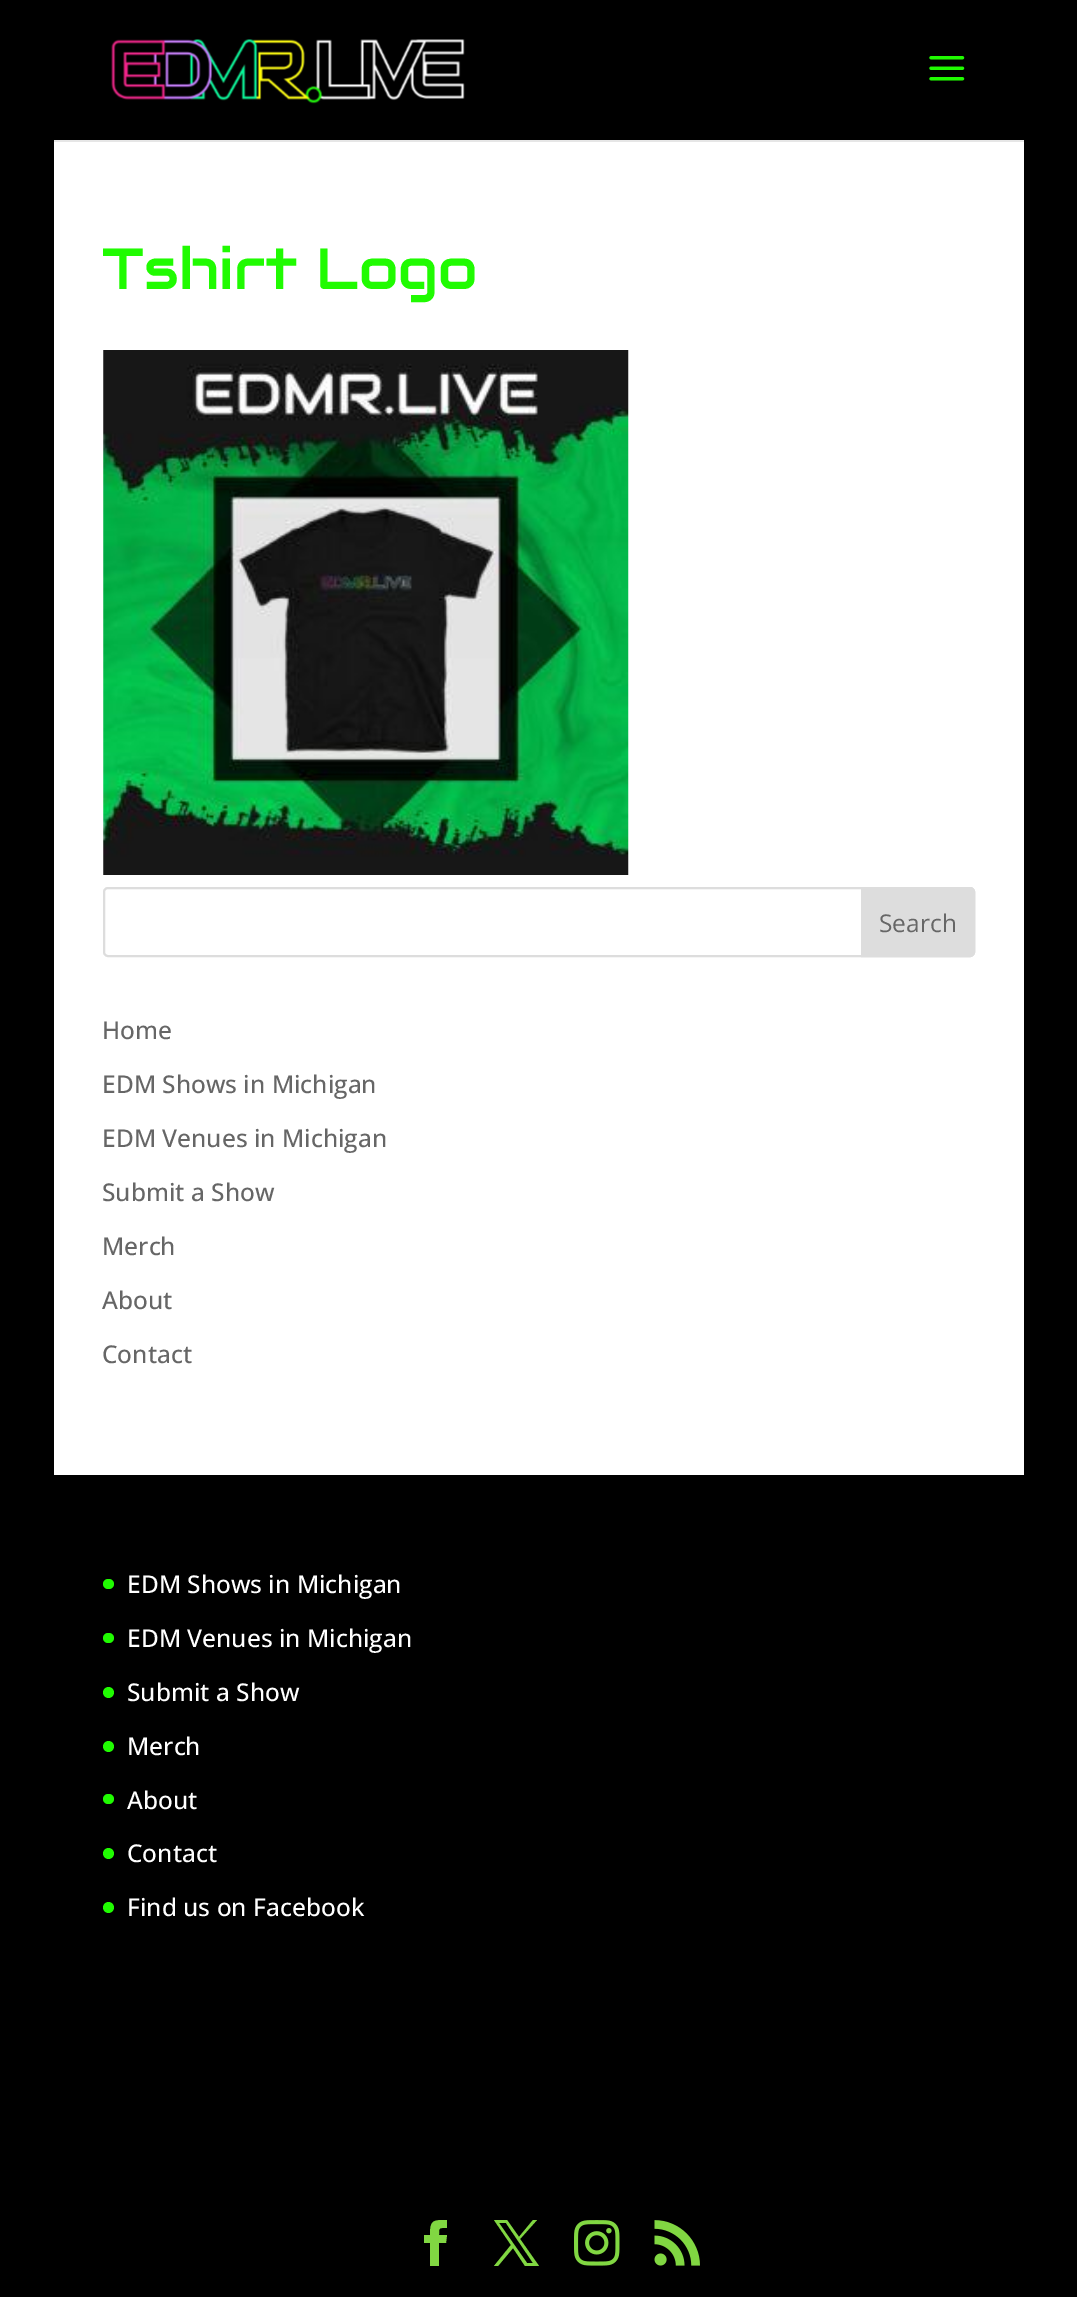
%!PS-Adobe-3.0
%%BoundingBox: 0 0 1077 2297
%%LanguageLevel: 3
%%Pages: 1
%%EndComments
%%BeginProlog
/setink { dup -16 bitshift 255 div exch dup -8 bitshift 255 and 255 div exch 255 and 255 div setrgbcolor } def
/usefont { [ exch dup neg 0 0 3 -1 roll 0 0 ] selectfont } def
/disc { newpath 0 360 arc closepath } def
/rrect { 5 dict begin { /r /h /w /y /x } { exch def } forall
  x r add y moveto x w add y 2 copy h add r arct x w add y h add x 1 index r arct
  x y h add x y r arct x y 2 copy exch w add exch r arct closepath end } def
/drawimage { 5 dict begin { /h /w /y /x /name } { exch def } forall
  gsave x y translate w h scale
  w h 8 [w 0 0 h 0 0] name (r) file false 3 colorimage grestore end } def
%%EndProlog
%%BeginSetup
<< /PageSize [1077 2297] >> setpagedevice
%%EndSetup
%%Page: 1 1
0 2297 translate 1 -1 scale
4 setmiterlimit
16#000000 setink
0 0 1077 2297 rectfill
16#E6E6E6 setink
54 2 moveto 54 142 lineto 1024 142 lineto 1024 2 lineto 1024 140 lineto 54 140 lineto closepath fill
(img1.raw) 111 39 354 65 drawimage
(img2.raw) 929 56 36 25 drawimage
16#FFFFFF setink
54 142 970 1333 rectfill
/Audiowide-Regular 57.75 usefont
16#20FB01 setink
102 289 moveto (Tshirt Logo) show
(img3.raw) 103 350 526 525 drawimage
16#DDDDDD setink
2 setlinewidth
104 888 870 68 4 rrect stroke
862 888 moveto 970 888 lineto 972 888 974 890 974 892 curveto 974 952 lineto 974 954 972 956 970 956 curveto 862 956 lineto closepath gsave fill grestore
stroke
/OpenSans-Regular 24.5 usefont
16#666666 setink
879 932 moveto (Search) show
/OpenSans-Medium 24.5 usefont
[
    [(Home) 102 1039]
    [(EDM Shows in Michigan) 102 1093]
    [(EDM Venues in Michigan) 102 1147]
    [(Submit a Show) 102 1201]
    [(Merch) 102 1255]
    [(About) 102 1309]
    [(Contact) 102 1363]
] { aload pop moveto show } forall
16#20FB01 setink
103 1579 11 10 5 rrect fill
16#FFFFFF setink
127 1593 moveto (EDM Shows in Michigan) show
16#20FB01 setink
103 1633 11 10 5 rrect fill
16#FFFFFF setink
127 1647 moveto (EDM Venues in Michigan) show
16#20FB01 setink
108.5 1692.5 5.5 disc fill
16#FFFFFF setink
127 1701 moveto (Submit a Show) show
16#20FB01 setink
108.5 1746.5 5.5 disc fill
16#FFFFFF setink
127 1755 moveto (Merch) show
16#20FB01 setink
103 1794 11 10 5 rrect fill
16#FFFFFF setink
127 1809 moveto (About) show
16#20FB01 setink
108.5 1853.5 5.5 disc fill
16#FFFFFF setink
127 1862 moveto (Contact) show
16#20FB01 setink
108.5 1907.5 5.5 disc fill
16#FFFFFF setink
127 1916 moveto (Find us on Facebook) show
16#81D742 setink
430 2266 moveto 439 2266 lineto 439 2243 lineto 446 2243 lineto 447 2235 lineto 439 2235 lineto 439 2227 439 2228 447 2228 curveto 447 2220 lineto 433 2220 430 2220 430 2235 curveto 424 2235 lineto 424 2243 lineto 430 2243 lineto closepath fill
494 2220 moveto 511 2245 lineto 494 2266 lineto 498 2266 lineto 513 2248 lineto 525 2266 lineto 539 2266 lineto 520 2239 lineto 537 2220 lineto 533 2220 lineto 519 2237 lineto 507 2220 lineto closepath 499 2223 moveto 506 2223 lineto 533 2263 lineto 527 2263 lineto closepath fill
(img4.raw) 574 2220 46 46 drawimage
(img5.raw) 654 2220 46 46 drawimage
showpage
%%EOF
